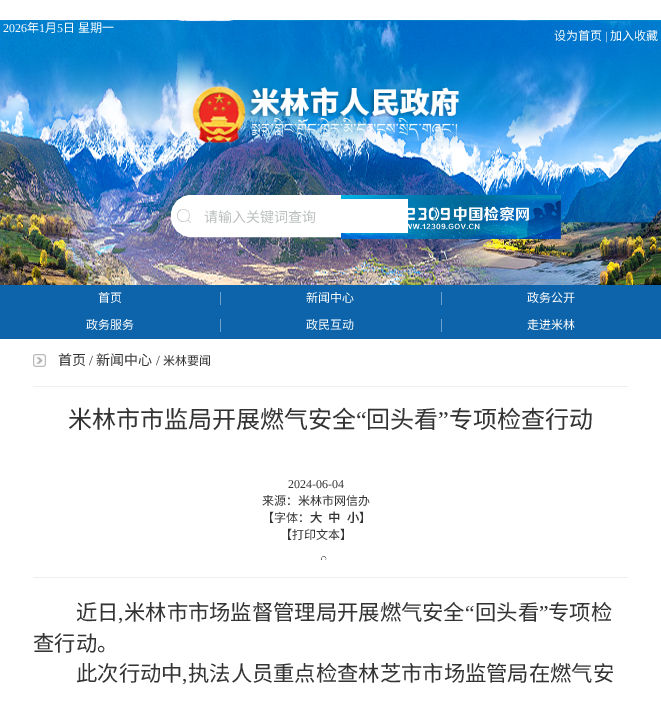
%!PS-Adobe-3.0
%%BoundingBox: 0 0 661 702
%%LanguageLevel: 3
%%Pages: 1
%%EndComments
%%BeginProlog
/setink { dup -16 bitshift 255 div exch dup -8 bitshift 255 and 255 div exch 255 and 255 div setrgbcolor } def
/usefont { [ exch dup neg 0 0 3 -1 roll 0 0 ] selectfont } def
/rrect { 5 dict begin { /r /h /w /y /x } { exch def } forall
  x r add y moveto x w add y 2 copy h add r arct x w add y h add x 1 index r arct
  x y h add x y r arct x y 2 copy exch w add exch r arct closepath end } def
/drawimage { 5 dict begin { /h /w /y /x /name } { exch def } forall
  gsave x y translate w h scale
  w h 8 [w 0 0 h 0 0] name (r) file false 3 colorimage grestore end } def
%%EndProlog
%%BeginSetup
<< /PageSize [661 702] >> setpagedevice
%%EndSetup
%%Page: 1 1
0 702 translate 1 -1 scale
4 setmiterlimit
16#FFFFFF setink
0 0 661 702 rectfill
(img1.raw) 0 20 661 265 drawimage
/LiberationSerif-Regular 12 usefont
3 32 moveto (2026) show
/NotoSansCJKSC-Regular 12 usefont
27 32 moveto (年) show
/LiberationSerif-Regular 12 usefont
39 32 moveto (1) show
/NotoSansCJKSC-Regular 12 usefont
45 32 moveto (月) show
/LiberationSerif-Regular 12 usefont
57 32 moveto (5) show
/NotoSansCJKSC-Regular 12 usefont
63 32 moveto (日 星期一) show
554 40 moveto (设为首页) show
/LiberationSerif-Regular 12 usefont
605 40 moveto (|) show
/NotoSansCJKSC-Regular 12 usefont
610 40 moveto (加入收藏) show
(img2.raw) 192 86 267 57 drawimage
173 197 316 38 18 rrect gsave fill grestore
4 setlinewidth
stroke
(img3.raw) 177 209 14 14 drawimage
(img4.raw) 341 195 220 44 drawimage
341 199 67 34 rectfill
/NotoSansCJKSC-Regular 14 usefont
16#BCC0C1 setink
204 222 moveto (请输入关键词查询) show
16#0E64AA setink
0 285 661 54 rectfill
/NotoSansCJKSC-Regular 12 usefont
16#FFFFFF setink
98 302 moveto (首页) show
16#6EA2CC setink
220 292 1 13 rectfill
16#FFFFFF setink
306 302 moveto (新闻中心) show
16#6EA2CC setink
441 292 1 13 rectfill
16#FFFFFF setink
527 302 moveto (政务公开) show
86 329 moveto (政务服务) show
16#6EA2CC setink
220 319 1 13 rectfill
16#FFFFFF setink
306 329 moveto (政民互动) show
16#6EA2CC setink
441 319 1 13 rectfill
16#FFFFFF setink
527 329 moveto (走进米林) show
(img5.raw) 33 354 13 13 drawimage
/NotoSansCJKSC-Regular 14 usefont
16#333333 setink
58 365 moveto (首页) show
/LiberationSerif-Regular 14 usefont
89 365 moveto (/) show
/NotoSansCJKSC-Regular 14 usefont
96 365 moveto (新闻中心) show
/LiberationSerif-Regular 14 usefont
156 365 moveto (/) show
/NotoSansCJKSC-Regular 12 usefont
163 365 moveto (米林要闻) show
16#EEEEEE setink
33 386 595 1 rectfill
/NotoSansCJKSC-Regular 24 usefont
16#333333 setink
68 428 moveto (米林市市监局开展燃气安全) show
/LiberationSerif-Regular 24 usefont
356 428 moveto (“) show
/NotoSansCJKSC-Regular 24 usefont
366 428 moveto (回头看) show
/LiberationSerif-Regular 24 usefont
438 428 moveto (”) show
/NotoSansCJKSC-Regular 24 usefont
449 428 moveto (专项检查行动) show
/LiberationSerif-Regular 12 usefont
288 488 moveto (2024-06-04) show
/NotoSansCJKSC-Regular 12 usefont
262 505 moveto (来源：米林市网信办) show
262 522 moveto (【字体：) show
/NotoSansCJKSC-Bold 12 usefont
[
    [(大) 310 522]
    [(中) 328 522]
    [(小) 347 522]
] { aload pop moveto show } forall
/NotoSansCJKSC-Regular 12 usefont
359 522 moveto (】) show
280 539 moveto (【打印文本】) show
(img6.raw) 321 556 6 4 drawimage
16#EEEEEE setink
33 577 595 1 rectfill
/NotoSansCJKSC-Regular 21.3 usefont
16#333333 setink
76 620 moveto (近日) show
124 620 moveto (米林市市场监督管理局开展燃气安全) show
/LiberationSerif-Regular 21.3 usefont
465 620 moveto (“) show
/NotoSansCJKSC-Regular 21.3 usefont
475 620 moveto (回头看) show
/LiberationSerif-Regular 21.3 usefont
539 620 moveto (”) show
/NotoSansCJKSC-Regular 21.3 usefont
548 620 moveto (专项检) show
/LiberationSerif-Regular 21.3 usefont
118 620 moveto (,) show
/NotoSansCJKSC-Regular 21.3 usefont
33 651 moveto (查行动。) show
76 681 moveto (此次行动中) show
/LiberationSerif-Regular 21.3 usefont
182 681 moveto (,) show
/NotoSansCJKSC-Regular 21.3 usefont
188 681 moveto (执法人员重点检查林芝市市场监管局在燃气安) show
showpage
%%EOF
